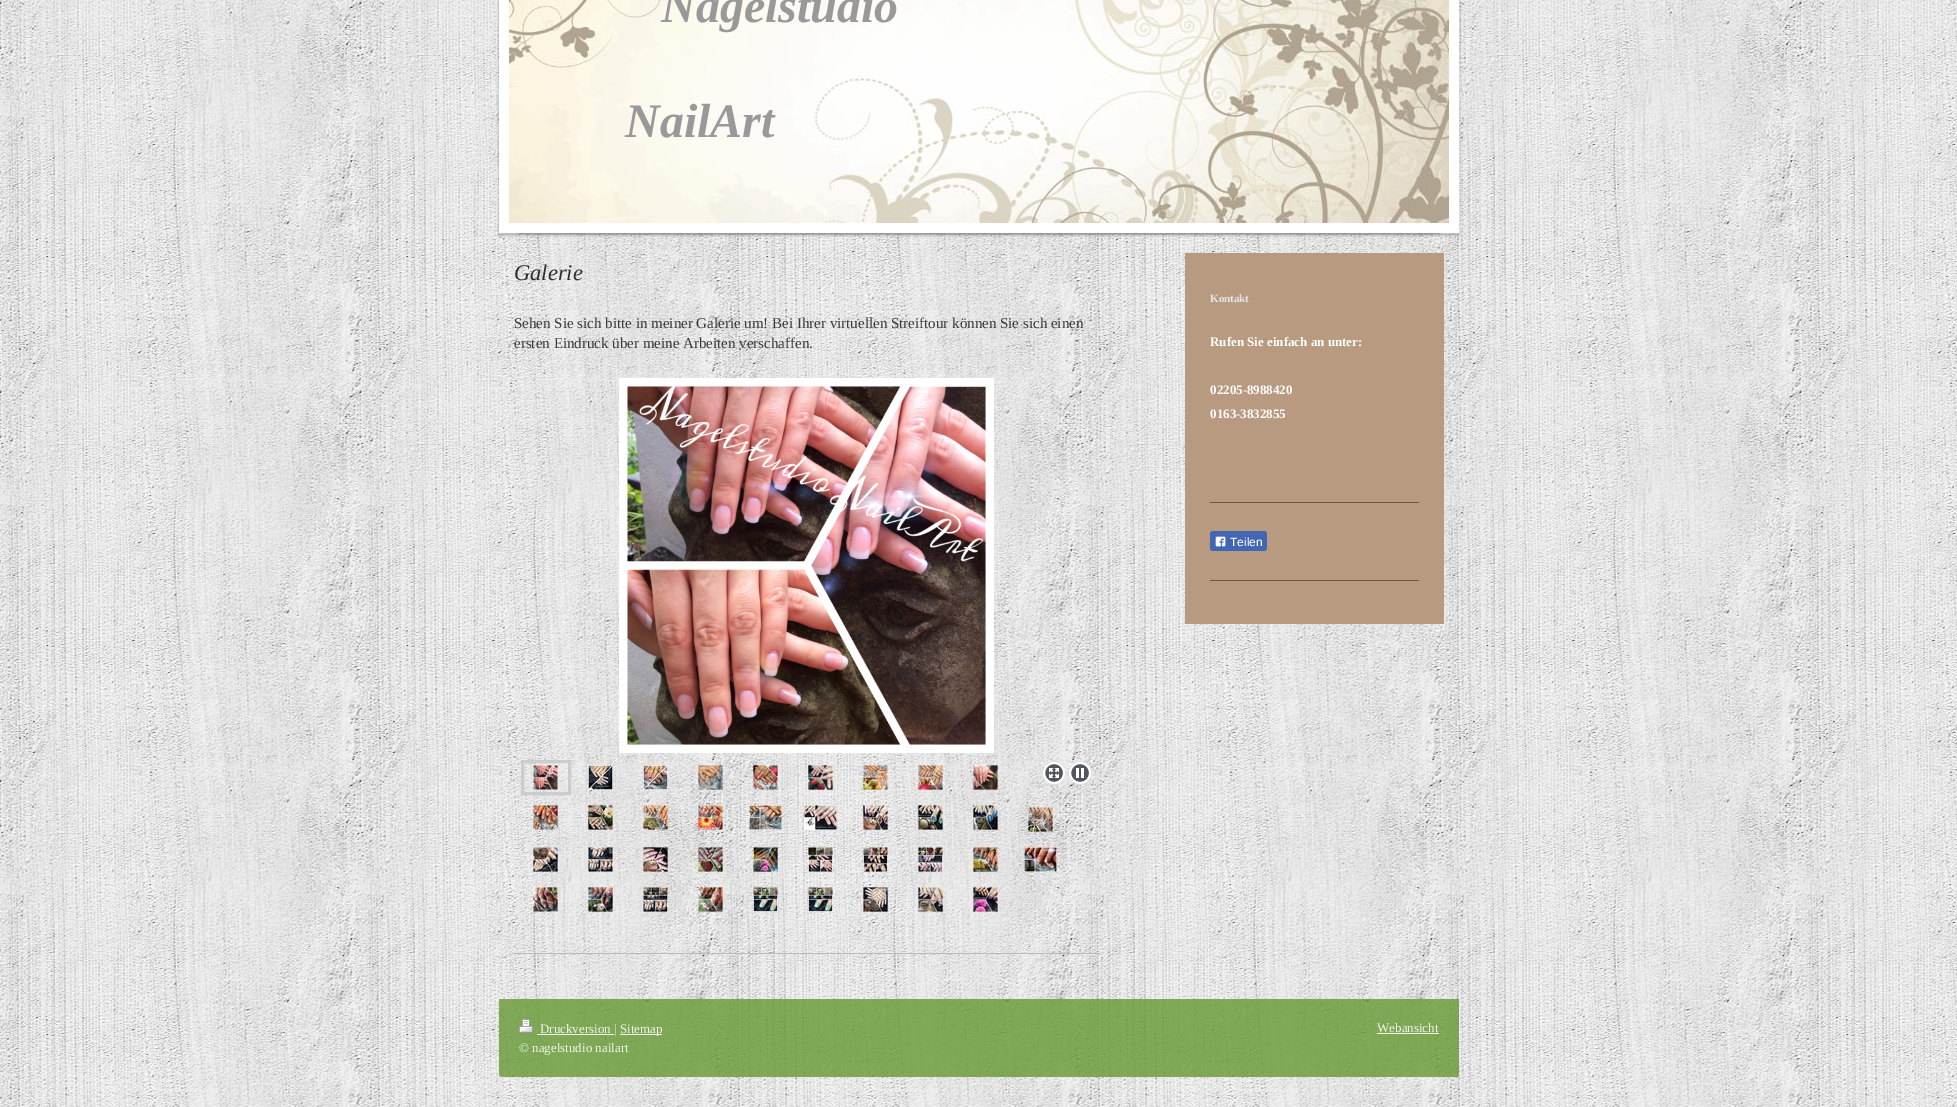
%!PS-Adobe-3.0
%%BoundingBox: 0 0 1957 1107
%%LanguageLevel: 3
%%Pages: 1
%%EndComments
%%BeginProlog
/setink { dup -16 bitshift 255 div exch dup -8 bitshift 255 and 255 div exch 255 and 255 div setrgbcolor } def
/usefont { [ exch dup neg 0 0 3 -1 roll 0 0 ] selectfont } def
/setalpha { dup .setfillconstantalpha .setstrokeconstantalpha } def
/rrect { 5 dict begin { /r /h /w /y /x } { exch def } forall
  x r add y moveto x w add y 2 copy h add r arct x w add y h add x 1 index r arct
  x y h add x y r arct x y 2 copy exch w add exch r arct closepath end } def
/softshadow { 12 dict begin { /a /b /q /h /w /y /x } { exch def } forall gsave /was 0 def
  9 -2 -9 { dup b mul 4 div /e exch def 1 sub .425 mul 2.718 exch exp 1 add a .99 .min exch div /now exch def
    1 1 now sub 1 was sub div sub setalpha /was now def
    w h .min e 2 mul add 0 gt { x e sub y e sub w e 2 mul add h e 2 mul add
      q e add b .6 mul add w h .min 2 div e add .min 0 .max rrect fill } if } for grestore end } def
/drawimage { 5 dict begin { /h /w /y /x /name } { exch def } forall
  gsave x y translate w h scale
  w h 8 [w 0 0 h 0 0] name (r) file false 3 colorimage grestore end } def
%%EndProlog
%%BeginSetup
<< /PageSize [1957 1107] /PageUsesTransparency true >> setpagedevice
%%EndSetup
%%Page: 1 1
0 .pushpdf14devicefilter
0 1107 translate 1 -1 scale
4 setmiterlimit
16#FFFFFF setink
0 0 1957 1107 rectfill
(img1.raw) 0 0 1957 1107 drawimage
16#000000 setink
499 -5 960 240 0 1.5 0.3 softshadow
519 -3 920 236 0 1 1 softshadow
16#FFFFFF setink
10 setlinewidth
504 -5 950 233 rectstroke
(img2.raw) 509 0 940 223 drawimage
/LiberationSerif-BoldItalic 48 usefont
16#999999 setink
661 22 moveto (Nagelstudio) show
625 137 moveto (NailArt) show
/LiberationSerif-Italic 22.5 usefont
16#2D2D2D setink
514 280 moveto (Galerie) show
/LiberationSerif-Regular 15 usefont
16#393939 setink
514 328 moveto (Sehen Sie sich bitte in meiner Galerie um! Bei Ihrer virtuellen Streiftour können Sie sich einen) show
514 348 moveto (ersten Eindruck über meine Arbeiten verschaffen.) show
(img3.raw) 619 378 375 375 drawimage
16#CCCCCC setink
3 setlinewidth
522.5 761.5 47 32 rectstroke
(img4.raw) 533 765 25 25 drawimage
(img5.raw) 588 765 25 25 drawimage
(img6.raw) 643 765 25 25 drawimage
(img7.raw) 698 765 25 25 drawimage
(img8.raw) 753 765 25 25 drawimage
(img9.raw) 808 765 25 25 drawimage
(img10.raw) 863 765 25 25 drawimage
(img11.raw) 918 765 25 25 drawimage
(img12.raw) 973 765 25 25 drawimage
(img13.raw) 1042 761 24 24 drawimage
(img14.raw) 1068 761 24 24 drawimage
(img15.raw) 533 805 25 25 drawimage
(img16.raw) 588 805 25 25 drawimage
(img17.raw) 643 805 25 25 drawimage
(img18.raw) 698 805 25 25 drawimage
(img19.raw) 749 805 33 25 drawimage
(img20.raw) 804 805 33 25 drawimage
(img21.raw) 863 805 25 25 drawimage
(img22.raw) 918 805 25 25 drawimage
(img23.raw) 973 805 25 25 drawimage
(img24.raw) 1028 807 25 25 drawimage
(img25.raw) 533 847 25 25 drawimage
(img26.raw) 588 847 25 25 drawimage
(img27.raw) 643 847 25 25 drawimage
(img28.raw) 698 847 25 25 drawimage
(img29.raw) 753 847 25 25 drawimage
(img30.raw) 808 847 25 25 drawimage
(img31.raw) 863 847 25 25 drawimage
(img32.raw) 918 847 25 25 drawimage
(img33.raw) 973 847 25 25 drawimage
(img34.raw) 1024 847 33 25 drawimage
(img35.raw) 533 887 25 25 drawimage
(img36.raw) 588 887 25 25 drawimage
(img37.raw) 643 887 25 25 drawimage
(img38.raw) 698 887 25 25 drawimage
(img39.raw) 753 887 25 25 drawimage
(img39.raw) 808 887 25 25 drawimage
(img40.raw) 863 887 25 25 drawimage
(img41.raw) 918 887 25 25 drawimage
(img42.raw) 973 887 25 25 drawimage
16#BABABA setink
514 953 586 1 rectfill
16#B89A80 setink
1185 253 259 371 rectfill
/LiberationSerif-Bold 11 usefont
16#E5E5E5 setink
1210 302 moveto (Kontakt) show
/LiberationSerif-Bold 13 usefont
16#FFFFFF setink
[
    [(Rufen Sie einfach an unter:) 1210 346]
    [(02205-8988420) 1210 394]
    [(0163-3832855) 1210 418]
] { aload pop moveto show } forall
16#6E5640 setink
1210 502 209 1 rectfill
16#4267B2 setink
1210 531 57 20 3 rrect fill
(img43.raw) 1215 536 11 11 drawimage
/LiberationSans-Regular 12 usefont
16#FFFFFF setink
1230 546 moveto (Teilen) show
16#6E5640 setink
1210 580 209 1 rectfill
0.8 setalpha
16#669933 setink
499 999 moveto 1459 999 lineto 1459 1074 lineto 1459 1075.5 1457.5 1077 1456 1077 curveto 502 1077 lineto 500.5 1077 499 1075.5 499 1074 curveto closepath fill
1 setalpha
(img44.raw) 519 1019 14 14 drawimage
16#F0F5EB setink
537 1034 77 1 rectfill
/LiberationSerif-Regular 13 usefont
540 1033 moveto (Druckversion |) show
620 1034 42 1 rectfill
[
    [(Sitemap) 620 1033]
    [(© nagelstudio nailart) 519 1052]
    [(Webansicht) 1377 1032]
] { aload pop moveto show } forall
1377 1033 62 1 rectfill
.poppdf14devicefilter showpage
%%EOF
